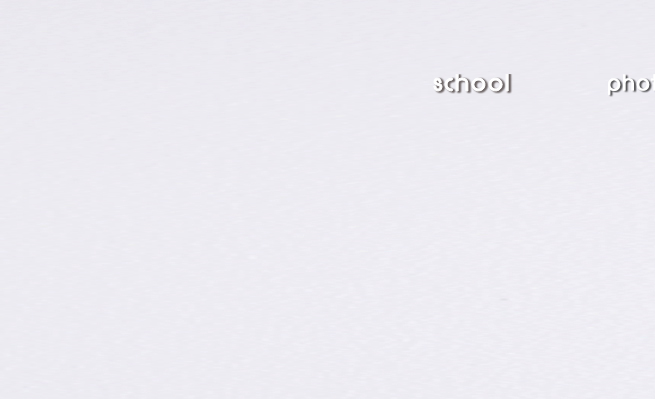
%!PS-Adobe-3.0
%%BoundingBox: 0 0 655 399
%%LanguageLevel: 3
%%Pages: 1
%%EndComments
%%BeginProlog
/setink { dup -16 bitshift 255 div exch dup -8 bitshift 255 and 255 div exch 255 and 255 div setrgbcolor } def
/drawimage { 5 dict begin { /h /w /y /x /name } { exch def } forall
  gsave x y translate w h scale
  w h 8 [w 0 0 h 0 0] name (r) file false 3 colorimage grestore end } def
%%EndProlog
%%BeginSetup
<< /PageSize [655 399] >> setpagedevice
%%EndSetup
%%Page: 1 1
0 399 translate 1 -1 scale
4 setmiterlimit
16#FFFFFF setink
0 0 655 399 rectfill
(img1.raw) 0 0 655 399 drawimage
(img2.raw) 433 74 80 20 drawimage
(img3.raw) 608 74 47 23 drawimage
showpage
%%EOF
